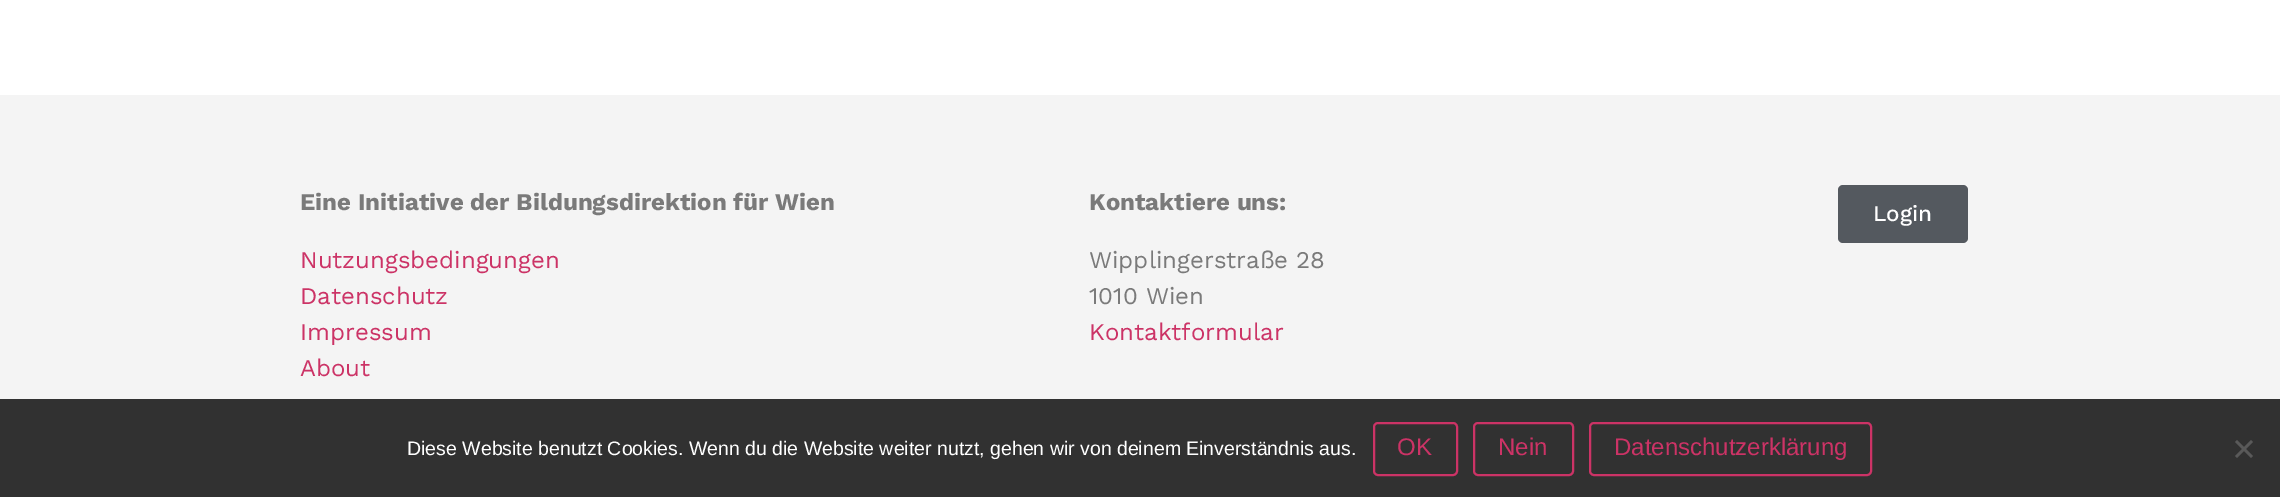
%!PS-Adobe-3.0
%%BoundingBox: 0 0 2280 497
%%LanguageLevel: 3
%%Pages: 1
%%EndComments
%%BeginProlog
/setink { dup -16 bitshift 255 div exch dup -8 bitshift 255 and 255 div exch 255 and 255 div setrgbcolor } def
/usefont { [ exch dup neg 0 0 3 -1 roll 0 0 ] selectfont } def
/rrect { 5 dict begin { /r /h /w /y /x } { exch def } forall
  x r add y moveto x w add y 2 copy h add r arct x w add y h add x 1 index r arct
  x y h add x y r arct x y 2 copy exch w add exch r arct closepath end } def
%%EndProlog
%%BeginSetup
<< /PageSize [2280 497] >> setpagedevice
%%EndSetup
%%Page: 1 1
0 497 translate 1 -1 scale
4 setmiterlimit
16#FFFFFF setink
0 0 2280 497 rectfill
16#F4F4F4 setink
0 95 2280 304 rectfill
/WorkSans-Bold 24 usefont
16#7A7A7A setink
300 210 moveto (Eine Initiative der Bildungsdirektion für Wien) show
/WorkSans-Regular 24 usefont
16#CC3366 setink
[
    [(Nutzungsbedingungen) 300 268]
    [(Datenschutz) 300 304]
    [(Impressum) 300 340]
    [(About) 300 376]
] { aload pop moveto show } forall
/WorkSans-Bold 24 usefont
16#7A7A7A setink
1089 210 moveto (Kontaktiere uns:) show
/WorkSans-Regular 24 usefont
1089 268 moveto (Wipplingerstraße 28) show
1089 304 moveto (1010 Wien) show
16#CC3366 setink
1089 340 moveto (Kontaktformular) show
16#54595F setink
1838 185 130 58 5 rrect fill
/WorkSans-Medium 22.5 usefont
16#FFFFFF setink
1873 221 moveto (Login) show
16#313131 setink
0 399 2280 98 rectfill
/LiberationSans-Regular 19.5 usefont
16#FFFFFF setink
407 455 moveto (Diese Website benutzt Cookies. Wenn du die Website weiter nutzt, gehen wir von deinem Einverständnis aus.) show
16#CC3366 setink
2 setlinewidth
1374 423 83 52 4 rrect stroke
/LiberationSans-Regular 24 usefont
1397 455 moveto (OK) show
1474 423 99 52 4 rrect stroke
1498 455 moveto (Nein) show
1590 423 281 52 4 rrect stroke
1614 455 moveto (Datenschutzerklärung) show
16#595959 setink
2251 440 moveto 2253 442 lineto 2237 458 lineto 2235 456 lineto closepath fill
2235 442 moveto 2237 440 lineto 2253 456 lineto 2251 458 lineto closepath fill
showpage
%%EOF
